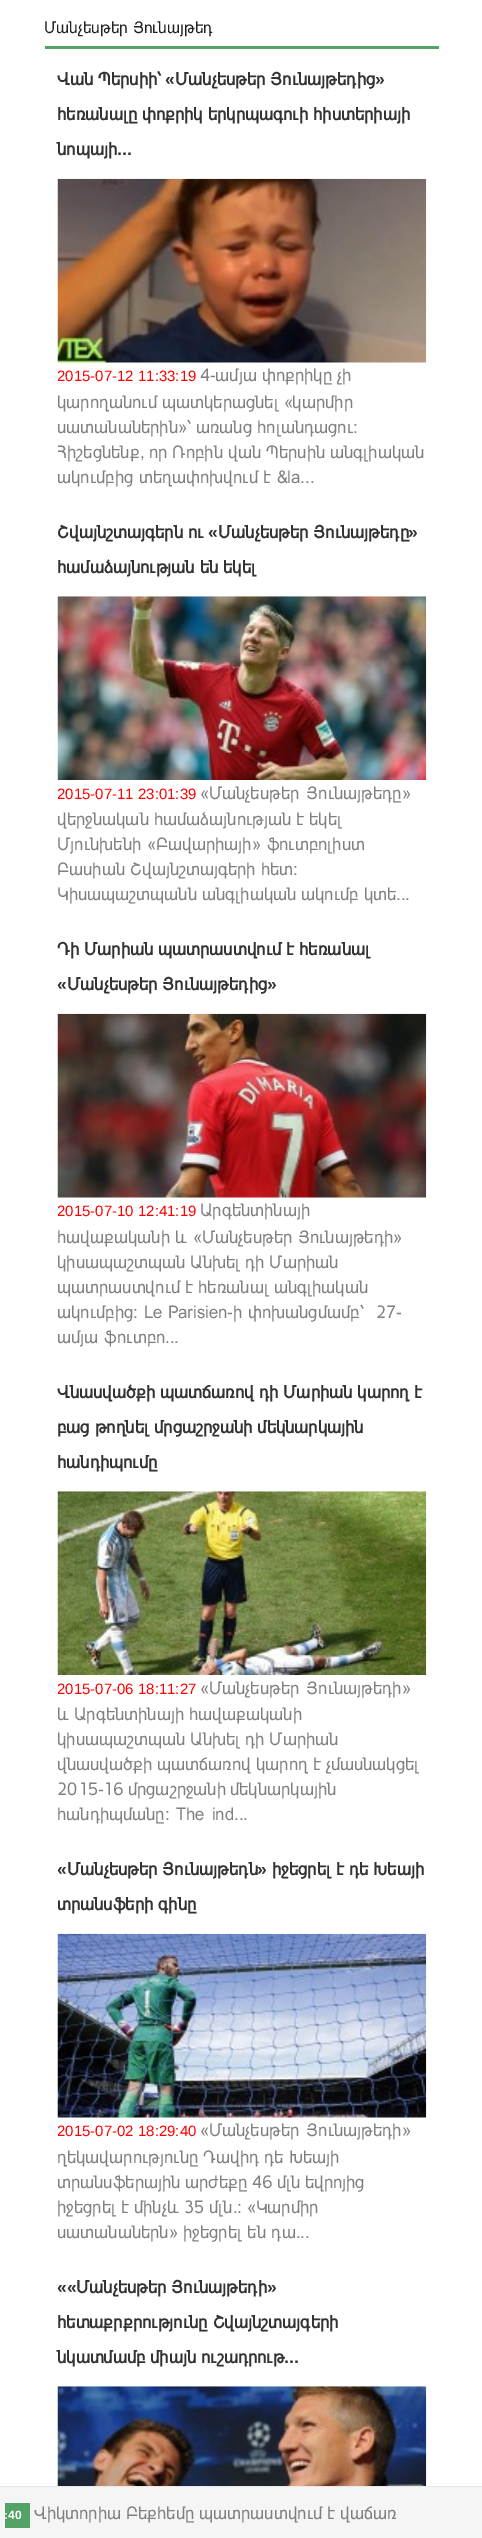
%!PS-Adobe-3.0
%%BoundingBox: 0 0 482 2538
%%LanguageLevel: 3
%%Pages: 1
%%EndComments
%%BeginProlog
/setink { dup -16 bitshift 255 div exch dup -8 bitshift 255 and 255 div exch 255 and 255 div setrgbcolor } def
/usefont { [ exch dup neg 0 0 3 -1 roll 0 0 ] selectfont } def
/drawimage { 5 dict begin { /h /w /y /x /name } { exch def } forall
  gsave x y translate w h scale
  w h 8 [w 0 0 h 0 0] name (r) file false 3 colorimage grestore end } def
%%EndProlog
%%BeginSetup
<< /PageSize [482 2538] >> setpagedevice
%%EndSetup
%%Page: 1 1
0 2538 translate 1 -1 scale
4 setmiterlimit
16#FFFFFF setink
0 0 482 2538 rectfill
16#53A367 setink
45 46 394 3 rectfill
/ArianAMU-Regular 16.25 usefont
16#222222 setink
44 33 moveto (Մանչեսթեր Յունայթեդ) show
/ArianAMU-Bold 17.5 usefont
16#333333 setink
57 85 moveto (Վան Պերսիի՝) show
/LiberationSans-Bold 17.5 usefont
165 85 moveto («) show
/ArianAMU-Bold 17.5 usefont
175 85 moveto (Մանչեսթեր Յունայթեդից) show
/LiberationSans-Bold 17.5 usefont
375 85 moveto (») show
/ArianAMU-Bold 17.5 usefont
57 120 moveto (հեռանալը փոքրիկ երկրպագուի հիստերիայի) show
57 155 moveto (նոպայի) show
/LiberationSans-Bold 17.5 usefont
117 155 moveto (...) show
(img1.raw) 57 178 370 185 drawimage
gsave
58 179 368 310 rectclip
/LiberationSans-Regular 15 usefont
16#FF0000 setink
57 381 moveto (2015-07-12 11:33:19) show
grestore
/ArianAMU-Regular 17.5 usefont
16#808080 setink
[
    [(4-ամյա փոքրիկը չի) 200 381]
    [(կարողանում պատկերացնել «կարմիր) 57 408]
    [(սատանաներին»՝ առանց հոլանդացու:) 57 433]
] { aload pop moveto show } forall
gsave
58 179 368 310 rectclip
57 458 moveto (Հիշեցնենք, որ Ռոբին վան Պերսին անգլիական) show
grestore
57 483 moveto 0.5 0 32 (ակումբից տեղափոխվում է &la...) widthshow
/ArianAMU-Bold 17.5 usefont
16#333333 setink
57 538 moveto (Շվայնշտայգերն ու) show
/LiberationSans-Bold 17.5 usefont
208 538 moveto («) show
/ArianAMU-Bold 17.5 usefont
218 538 moveto (Մանչեսթեր Յունայթեդը) show
/LiberationSans-Bold 17.5 usefont
408 538 moveto (») show
/ArianAMU-Bold 17.5 usefont
57 573 moveto (համաձայնության են եկել) show
(img2.raw) 57 596 370 184 drawimage
gsave
58 596 368 310 rectclip
/LiberationSans-Regular 15 usefont
16#FF0000 setink
57 799 moveto (2015-07-11 23:01:39) show
grestore
/ArianAMU-Regular 17.5 usefont
16#808080 setink
200 799 moveto 2 0 32 («Մանչեսթեր Յունայթեդը») widthshow
57 825 moveto (վերջնական համաձայնության է եկել) show
57 850 moveto 1 0 32 (Մյունխենի «Բավարիայի» ֆուտբոլիստ) widthshow
57 875 moveto (Բասիան Շվայնշտայգերի հետ:) show
57 900 moveto (Կիսապաշտպանն անգլիական ակումբ կտե...) show
/ArianAMU-Bold 17.5 usefont
16#333333 setink
57 955 moveto (Դի Մարիան պատրաստվում է հեռանալ) show
/LiberationSans-Bold 17.5 usefont
57 990 moveto («) show
/ArianAMU-Bold 17.5 usefont
67 990 moveto (Մանչեսթեր Յունայթեդից) show
/LiberationSans-Bold 17.5 usefont
267 990 moveto (») show
(img3.raw) 57 1013 370 185 drawimage
gsave
58 1014 368 335 rectclip
/LiberationSans-Regular 15 usefont
16#FF0000 setink
57 1216 moveto (2015-07-10 12:41:19) show
grestore
/ArianAMU-Regular 17.5 usefont
16#808080 setink
200 1216 moveto (Արգենտինայի) show
57 1243 moveto 0.5 0 32 (հավաքականի և «Մանչեսթեր Յունայթեդի») widthshow
57 1268 moveto (կիսապաշտպան Անխել դի Մարիան) show
57 1293 moveto (պատրաստվում է հեռանալ անգլիական) show
57 1318 moveto 1 0 32 (ակումբից: Le Parisien-ի փոխանցմամբ՝  27-) widthshow
57 1343 moveto 1 0 32 (ամյա ֆուտբո...) widthshow
/ArianAMU-Bold 17.5 usefont
16#333333 setink
[
    [(Վնասվածքի պատճառով դի Մարիան կարող է) 57 1398]
    [(բաց թողնել մրցաշրջանի մեկնարկային) 57 1433]
    [(հանդիպումը) 57 1468]
] { aload pop moveto show } forall
(img4.raw) 57 1491 370 184 drawimage
gsave
58 1491 368 335 rectclip
/LiberationSans-Regular 15 usefont
16#FF0000 setink
57 1694 moveto (2015-07-06 18:11:27) show
grestore
/ArianAMU-Regular 17.5 usefont
16#808080 setink
200 1694 moveto 2 0 32 («Մանչեսթեր Յունայթեդի») widthshow
[
    [(և Արգենտինայի հավաքականի) 57 1720]
    [(կիսապաշտպան Անխել դի Մարիան) 57 1745]
    [(վնասվածքի պատճառով կարող է չմասնակցել) 57 1770]
] { aload pop moveto show } forall
57 1795 moveto -1 0 32 (2015-16 մրցաշրջանի մեկնարկային) widthshow
57 1820 moveto 2 0 32 (հանդիպմանը: The ind...) widthshow
/LiberationSans-Bold 17.5 usefont
16#333333 setink
57 1875 moveto («) show
/ArianAMU-Bold 17.5 usefont
67 1875 moveto (Մանչեսթեր Յունայթեդն) show
/LiberationSans-Bold 17.5 usefont
257 1875 moveto (») show
/ArianAMU-Bold 17.5 usefont
272 1875 moveto (իջեցրել է դե Խեայի) show
57 1910 moveto (տրանսֆերի գինը) show
(img5.raw) 57 1933 370 185 drawimage
gsave
58 1934 368 310 rectclip
/LiberationSans-Regular 15 usefont
16#FF0000 setink
57 2136 moveto (2015-07-02 18:29:40) show
grestore
/ArianAMU-Regular 17.5 usefont
16#808080 setink
200 2136 moveto 2 0 32 («Մանչեսթեր Յունայթեդի») widthshow
57 2163 moveto (ղեկավարությունը Դավիդ դե Խեայի) show
57 2188 moveto -0.5 0 32 (տրանսֆերային արժեքը 46 մլն եվրոյից) widthshow
57 2213 moveto (իջեցրել է մինչև 35 մլն.: «Կարմիր) show
57 2238 moveto 0.5 0 32 (սատանաներն» իջեցրել են դա...) widthshow
/LiberationSans-Bold 17.5 usefont
16#333333 setink
57 2293 moveto (««) show
/ArianAMU-Bold 17.5 usefont
76 2293 moveto (Մանչեսթեր Յունայթեդի) show
/LiberationSans-Bold 17.5 usefont
267 2293 moveto (») show
/ArianAMU-Bold 17.5 usefont
[
    [(հետաքրքրությունը Շվայնշտայգերի) 57 2328]
    [(նկատմամբ) 57 2363]
    [(միայն ուշադրութ) 150 2363]
] { aload pop moveto show } forall
/LiberationSans-Bold 17.5 usefont
284 2363 moveto (...) show
(img6.raw) 57 2386 370 100 drawimage
[
    [0 2487 482 51 16#F5F5F5]
    [0 2486 482 1 16#E8E8E8]
    [5 2503 25 25 16#53A367]
] { aload pop setink rectfill } forall
/LiberationSans-Bold 12 usefont
16#FFFFFF setink
4 2519 moveto (:40) show
/ArianAMU-Regular 17.5 usefont
16#808080 setink
34 2519 moveto (Վիկտորիա Բեքհեմը պատրաստվում է վաճառ) show
showpage
%%EOF
